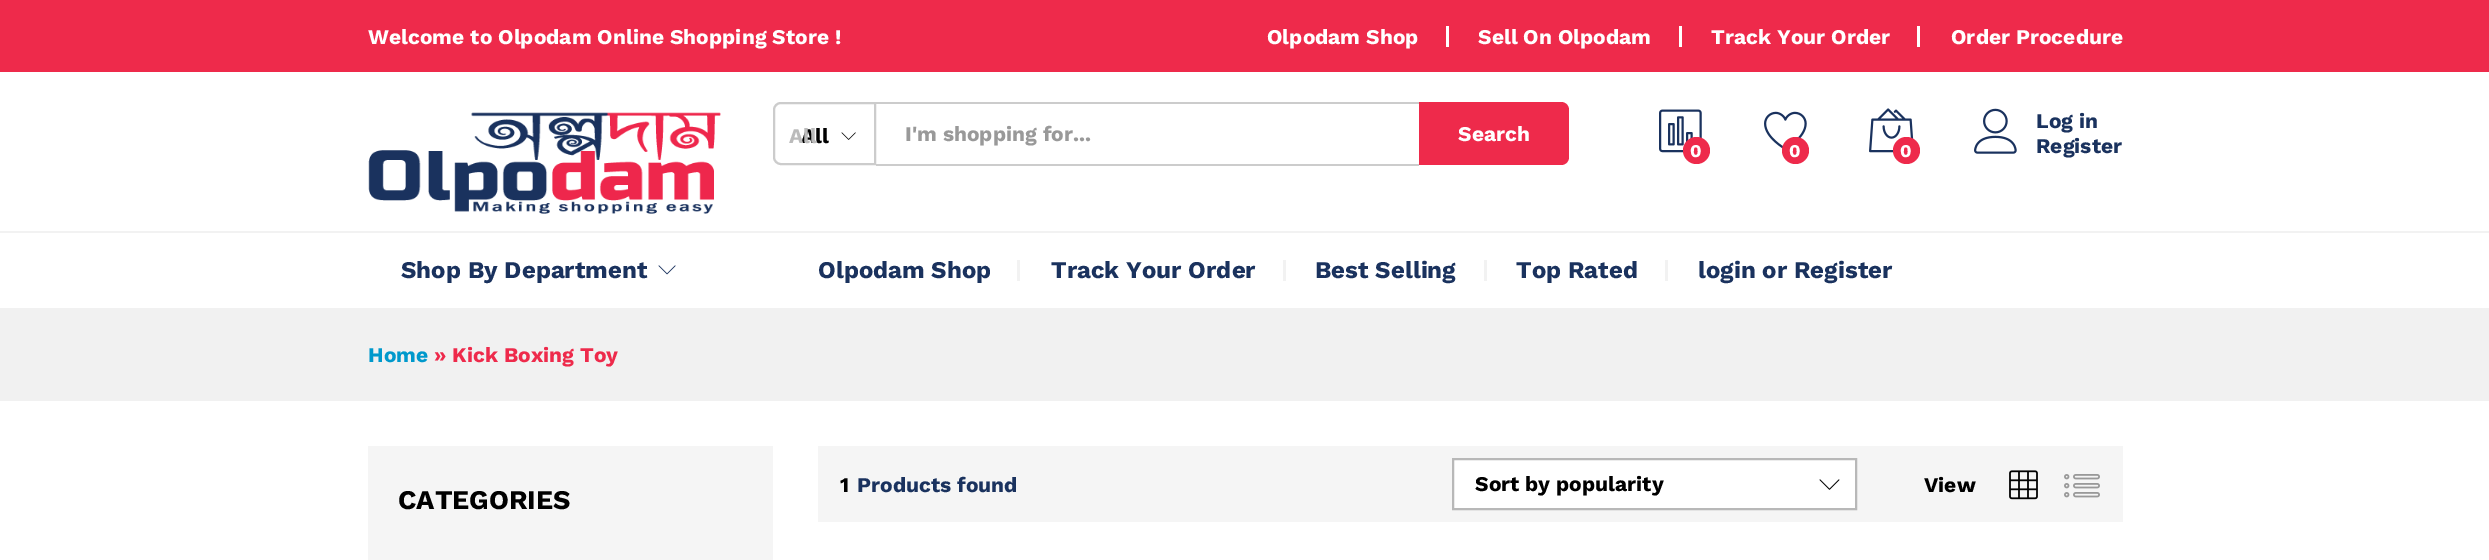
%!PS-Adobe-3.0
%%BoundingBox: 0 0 2489 560
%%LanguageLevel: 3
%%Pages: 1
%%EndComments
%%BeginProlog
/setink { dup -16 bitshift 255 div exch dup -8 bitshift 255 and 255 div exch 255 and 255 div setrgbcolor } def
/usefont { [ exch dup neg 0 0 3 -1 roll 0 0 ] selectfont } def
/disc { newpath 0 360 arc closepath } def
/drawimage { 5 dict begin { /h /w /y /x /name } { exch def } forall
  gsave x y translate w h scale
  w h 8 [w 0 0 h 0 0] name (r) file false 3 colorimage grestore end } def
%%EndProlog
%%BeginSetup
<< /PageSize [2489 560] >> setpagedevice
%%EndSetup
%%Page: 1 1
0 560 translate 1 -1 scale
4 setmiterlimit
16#FFFFFF setink
0 0 2489 560 rectfill
16#EE2A4B setink
0 0 2489 72 rectfill
/WorkSans-Bold 21 usefont
16#FFFFFF setink
368 44 moveto (Welcome to Olpodam Online Shopping Store !) show
1267 44 moveto (Olpodam Shop) show
1446 26 3 21 rectfill
1478 44 moveto (Sell On Olpodam) show
1679 26 3 21 rectfill
1711 44 moveto (Track Your Order) show
1917 26 3 21 rectfill
1951 44 moveto (Order Procedure) show
(img1.raw) 368 112 353 102 drawimage
16#CCCCCC setink
2 setlinewidth
781 103 moveto 875 103 lineto 875 164 lineto 781 164 lineto 777 164 774 161 774 157 curveto 774 110 lineto 774 106 777 103 781 103 curveto closepath stroke
16#000000 setink
801 143 moveto (All) show
16#BBBBBB setink
789 143 moveto (All) show
(img2.raw) 841 132 15 8 drawimage
16#CCCCCC setink
876 102 543 2 rectfill
876 164 543 2 rectfill
16#999999 setink
905 141 moveto (I'm shopping for...) show
16#EE2A4B setink
1419 102 moveto 1561 102 lineto 1565.5 102 1569 105.5 1569 110 curveto 1569 157 lineto 1569 161.5 1565.5 165 1561 165 curveto 1419 165 lineto closepath fill
16#FFFFFF setink
1458 141 moveto (Search) show
(img3.raw) 1659 109 43 44 drawimage
16#EE2A4B setink
1696.5 150.5 13.5 disc fill
/WorkSans-Bold 18 usefont
16#FFFFFF setink
1690 157 moveto (0) show
(img4.raw) 1764 111 43 38 drawimage
16#EE2A4B setink
1795.5 150.5 13.5 disc fill
16#FFFFFF setink
1789 157 moveto (0) show
(img5.raw) 1869 108 45 45 drawimage
16#EE2A4B setink
1906.5 150.5 13.5 disc fill
16#FFFFFF setink
1900 157 moveto (0) show
(img6.raw) 1974 108 43 46 drawimage
/WorkSans-Bold 21 usefont
16#1A325E setink
2036 128 moveto (Log in) show
2036 153 moveto (Register) show
16#F2F2F2 setink
0 231 2489 2 rectfill
/WorkSans-Bold 24 usefont
16#1A325E setink
401 278 moveto (Shop By Department) show
(img7.raw) 658 265 18 10 drawimage
818 278 moveto (Olpodam Shop) show
16#F2F2F2 setink
1017 260 3 21 rectfill
16#1A325E setink
1051 278 moveto (Track Your Order) show
16#F2F2F2 setink
1283 260 3 21 rectfill
16#1A325E setink
1315 278 moveto (Best Selling) show
16#F2F2F2 setink
1484 260 3 21 rectfill
16#1A325E setink
1516 278 moveto (Top Rated) show
16#F2F2F2 setink
1665 260 3 21 rectfill
16#1A325E setink
1698 278 moveto (login or Register) show
16#F1F1F1 setink
0 308 2489 93 rectfill
/WorkSans-Bold 21 usefont
16#0099CC setink
368 362 moveto (Home) show
16#EE2A4B setink
434 362 moveto (» Kick Boxing Toy) show
16#F5F5F5 setink
818 446 1305 76 rectfill
16#000000 setink
840 492 moveto (1) show
16#1A325E setink
857 492 moveto (Products found) show
16#FFFFFF setink
1453 459 moveto 1856 459 lineto 1856 509 lineto 1453 509 lineto closepath gsave fill grestore
16#B8B8B8 setink
stroke
16#000000 setink
1475 491 moveto (Sort by popularity) show
(img8.raw) 1819 479 21 11 drawimage
1924 492 moveto (View) show
(img9.raw) 2009 470 29 30 drawimage
(img10.raw) 2064 474 36 24 drawimage
16#F5F5F5 setink
368 446 405 114 rectfill
/WorkSans-Bold 27 usefont
16#000000 setink
398 509 moveto (CATEGORIES) show
showpage
%%EOF
